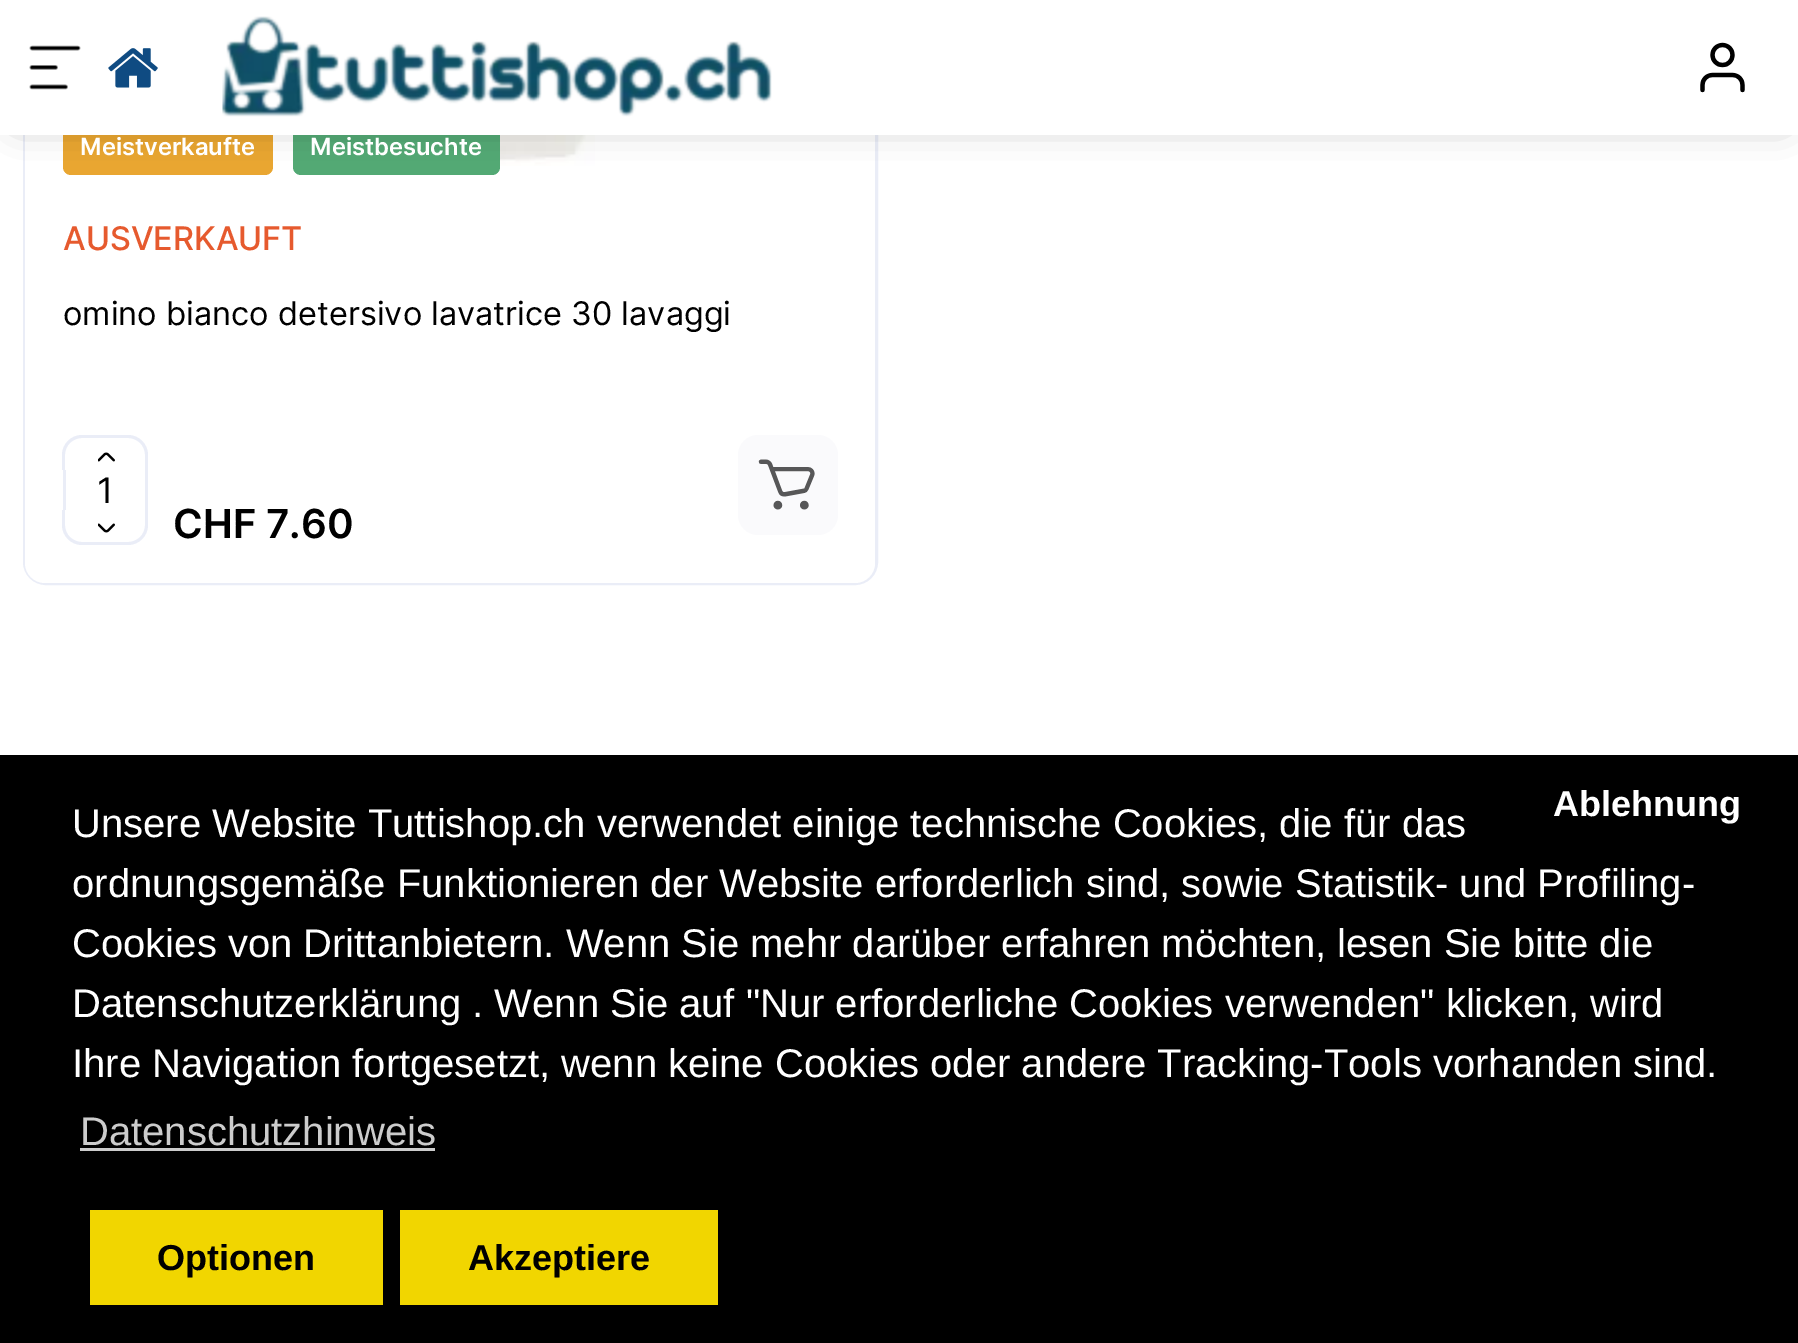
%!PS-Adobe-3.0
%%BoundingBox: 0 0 1798 1343
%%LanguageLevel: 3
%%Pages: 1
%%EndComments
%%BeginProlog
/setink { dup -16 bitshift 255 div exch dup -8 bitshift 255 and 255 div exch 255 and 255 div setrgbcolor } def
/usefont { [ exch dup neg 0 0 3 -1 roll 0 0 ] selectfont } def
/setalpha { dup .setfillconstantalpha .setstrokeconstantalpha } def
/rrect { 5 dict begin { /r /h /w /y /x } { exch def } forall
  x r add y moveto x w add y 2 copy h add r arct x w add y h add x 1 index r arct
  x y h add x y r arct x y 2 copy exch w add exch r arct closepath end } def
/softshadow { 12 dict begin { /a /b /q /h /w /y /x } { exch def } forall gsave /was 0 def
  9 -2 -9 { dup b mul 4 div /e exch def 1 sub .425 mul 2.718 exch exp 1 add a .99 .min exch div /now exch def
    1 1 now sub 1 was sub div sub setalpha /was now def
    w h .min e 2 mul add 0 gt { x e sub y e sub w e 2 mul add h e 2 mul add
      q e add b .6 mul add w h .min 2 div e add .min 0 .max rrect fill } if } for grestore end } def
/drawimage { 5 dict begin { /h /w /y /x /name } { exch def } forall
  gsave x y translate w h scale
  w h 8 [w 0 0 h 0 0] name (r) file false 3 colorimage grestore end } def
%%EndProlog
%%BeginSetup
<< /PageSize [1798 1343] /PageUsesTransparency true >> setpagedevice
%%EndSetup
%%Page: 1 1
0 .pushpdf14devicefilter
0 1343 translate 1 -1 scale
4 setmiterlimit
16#FFFFFF setink
0 0 1798 1343 rectfill
16#EAEDF7 setink
3 setlinewidth
24.5 -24.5 852 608 21.5 rrect stroke
16#FFFFFF setink
25 -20 850 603 20 rrect fill
16#E9A631 setink
63 120 210 55 8 rrect fill
16#53A974 setink
293 120 207 55 8 rrect fill
(img5.raw) 500 135 95 31 drawimage
16#000000 setink
18 18 1765 100 0 19 0.4 softshadow
16#FFFFFF setink
0 0 1798 135 rectfill
(img1.raw) 29 45 52 45 drawimage
(img2.raw) 108 48 50 40 drawimage
(img3.raw) 222 16 550 101 drawimage
(img4.raw) 1700 42 45 51 drawimage
/Inter-SemiBold 23.75 usefont
80 155 moveto (Meistverkaufte) show
310 155 moveto (Meistbesuchte) show
/Inter-Medium 32.5 usefont
16#E65A2E setink
63 250 moveto (AUSVERKAUFT) show
/Inter-Regular 32.5 usefont
16#000000 setink
63 325 moveto (omino bianco detersivo lavatrice 30 lavaggi) show
16#EAEDF7 setink
82 435 moveto 128 435 lineto 139 435 148 444 148 455 curveto 148 470 lineto 62 470 lineto 62 455 lineto 62 444 71 435 82 435 curveto closepath 82 438 moveto 128 438 lineto 137 438 145 445 145 455 curveto 145 470 lineto 65 470 lineto 65 455 lineto 65 445 73 438 82 438 curveto closepath eofill
(img6.raw) 98 452 17 10 drawimage
145 470 3 40 rectfill
63 470 3 40 rectfill
/Inter-Regular 35 usefont
16#000000 setink
97 503 moveto (1) show
16#EAEDF7 setink
62 510 moveto 148 510 lineto 148 525 lineto 148 536 139 545 128 545 curveto 82 545 lineto 71 545 62 536 62 525 curveto closepath 65 510 moveto 145 510 lineto 145 525 lineto 145 535 137 542 128 542 curveto 82 542 lineto 73 542 65 535 65 525 curveto closepath eofill
(img7.raw) 98 523 17 10 drawimage
16#FAFAFC setink
738 435 100 100 20 rrect fill
(img8.raw) 758 459 57 51 drawimage
/Inter-SemiBold 40 usefont
16#000000 setink
173 538 moveto (CHF 7.60) show
0 755 1798 588 rectfill
/LiberationSans-Bold 36 usefont
16#FFFFFF setink
1553 816 moveto (Ablehnung) show
16#F1D600 setink
90 1210 293 95 rectfill
16#000000 setink
157 1270 moveto (Optionen) show
16#F1D600 setink
400 1210 318 95 rectfill
16#000000 setink
468 1270 moveto (Akzeptiere) show
/LiberationSans-Regular 40 usefont
16#FFFFFF setink
[
    [(Unsere Website Tuttishop.ch verwendet einige technische Cookies, die für das) 72 837]
    [(ordnungsgemäße Funktionieren der Website erforderlich sind, sowie Statistik- und Profiling-) 72 897]
    [(Cookies von Drittanbietern. Wenn Sie mehr darüber erfahren möchten, lesen Sie bitte die) 72 957]
    [(Datenschutzerklärung . Wenn Sie auf "Nur erforderliche Cookies verwenden" klicken, wird) 72 1017]
    [(Ihre Navigation fortgesetzt, wenn keine Cookies oder andere Tracking-Tools vorhanden sind.) 72 1077]
] { aload pop moveto show } forall
16#CCCCCC setink
80 1145 moveto (Datenschutzhinweis) show
80 1148 355 3 rectfill
.poppdf14devicefilter showpage
%%EOF
